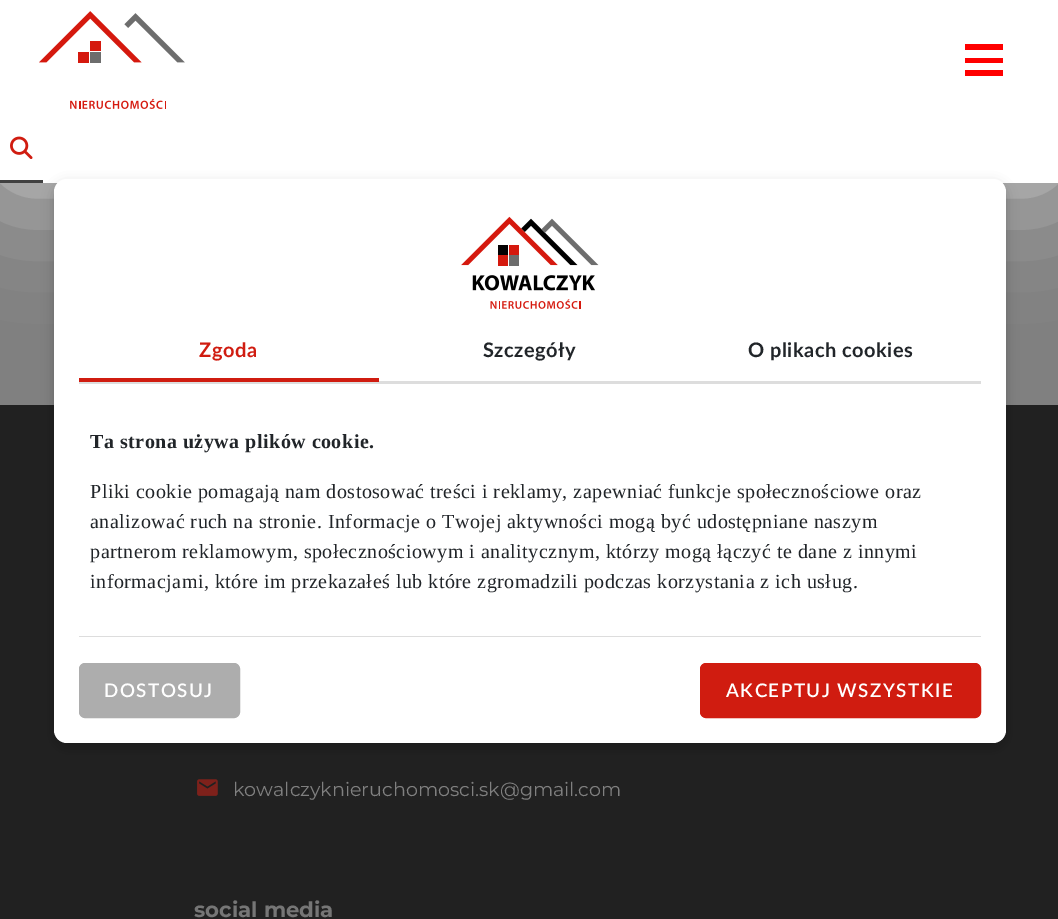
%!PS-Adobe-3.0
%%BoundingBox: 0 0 1058 919
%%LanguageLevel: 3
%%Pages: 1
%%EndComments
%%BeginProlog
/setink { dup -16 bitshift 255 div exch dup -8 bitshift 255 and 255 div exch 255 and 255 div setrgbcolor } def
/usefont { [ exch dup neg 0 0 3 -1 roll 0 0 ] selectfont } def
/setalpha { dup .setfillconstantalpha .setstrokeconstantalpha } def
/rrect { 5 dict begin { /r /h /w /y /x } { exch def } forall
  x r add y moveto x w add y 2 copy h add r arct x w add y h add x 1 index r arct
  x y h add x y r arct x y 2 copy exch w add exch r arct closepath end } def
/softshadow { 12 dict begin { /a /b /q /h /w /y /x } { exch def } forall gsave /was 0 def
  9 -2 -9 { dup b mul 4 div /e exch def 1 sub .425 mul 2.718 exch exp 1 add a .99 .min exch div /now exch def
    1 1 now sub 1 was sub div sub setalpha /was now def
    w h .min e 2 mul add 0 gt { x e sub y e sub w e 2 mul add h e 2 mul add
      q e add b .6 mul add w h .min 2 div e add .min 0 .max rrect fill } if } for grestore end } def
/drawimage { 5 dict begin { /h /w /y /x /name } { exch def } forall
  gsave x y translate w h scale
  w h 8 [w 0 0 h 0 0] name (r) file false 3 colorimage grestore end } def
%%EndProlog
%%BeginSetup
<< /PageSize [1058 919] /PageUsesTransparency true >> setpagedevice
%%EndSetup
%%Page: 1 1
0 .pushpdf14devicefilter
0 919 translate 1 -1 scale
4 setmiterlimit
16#808080 setink
0 0 1058 919 rectfill
16#CDCDCD setink
0 0 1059 183 0 62.5 1 softshadow
16#FFFFFF setink
0 0 1058 183 rectfill
(img1.raw) 39 11 146 98 drawimage
[
    [965 44 38 6 16#FF0000]
    [965 58 38 5 16#FF0000]
    [965 70 38 6 16#FF0000]
    [0 180 43 3 16#414141]
] { aload pop setink rectfill } forall
(img2.raw) 10 136 23 23 drawimage
16#212121 setink
0 405 1058 514 rectfill
16#000000 setink
54 184 952 564 13 6 0.2 softshadow
16#FFFFFF setink
54 179 952 564 13 rrect fill
(img3.raw) 461 216 138 93 drawimage
16#DDDDDD setink
79 381 902 3 rectfill
16#D01C10 setink
79 378 300 4 rectfill
/Lato-Bold 20 usefont
199 357 moveto 0.5 0 (Zgoda) ashow
16#212529 setink
483 357 moveto 0.5 0 (Szczegóły) ashow
748 357 moveto 0.5 0 (O plikach cookies) ashow
/LiberationSerif-Bold 20 usefont
90 448 moveto 0.5 0 (Ta strona używa plików cookie.) ashow
/LiberationSerif-Regular 20 usefont
90 498 moveto 0.5 0 (Pliki cookie pomagają nam dostosować treści i reklamy, zapewniać funkcje społecznościowe oraz) ashow
90 528 moveto 0.5 0 (analizować ruch na stronie. Informacje o Twojej aktywności mogą być udostępniane naszym) ashow
90 558 moveto 0.5 0 (partnerom reklamowym, społecznościowym i analitycznym, którzy mogą łączyć te dane z innymi) ashow
90 588 moveto 0.5 0 (informacjami, które im przekazałeś lub które zgromadzili podczas korzystania z ich usług.) ashow
16#DDDDDD setink
79 636 902 1 rectfill
16#ADADAD setink
79.5 663.5 160 54 5.5 rrect gsave fill grestore
stroke
/Lato-SemiBold 18.75 usefont
16#FFFFFF setink
104 697 moveto 1.5 0 (DOSTOSUJ) ashow
16#D01C10 setink
700.5 663.5 280 54 5.5 rrect gsave fill grestore
stroke
16#FFFFFF setink
726 697 moveto 1.5 0 (AKCEPTUJ WSZYSTKIE) ashow
(img4.raw) 197 779 21 17 drawimage
/Montserrat-Regular 19.1 usefont
16#808080 setink
233 796 moveto (kowalczyknieruchomosci.sk@gmail.com) show
/Montserrat-Bold 21.25 usefont
16#767676 setink
194 917 moveto (social media) show
.poppdf14devicefilter showpage
%%EOF
